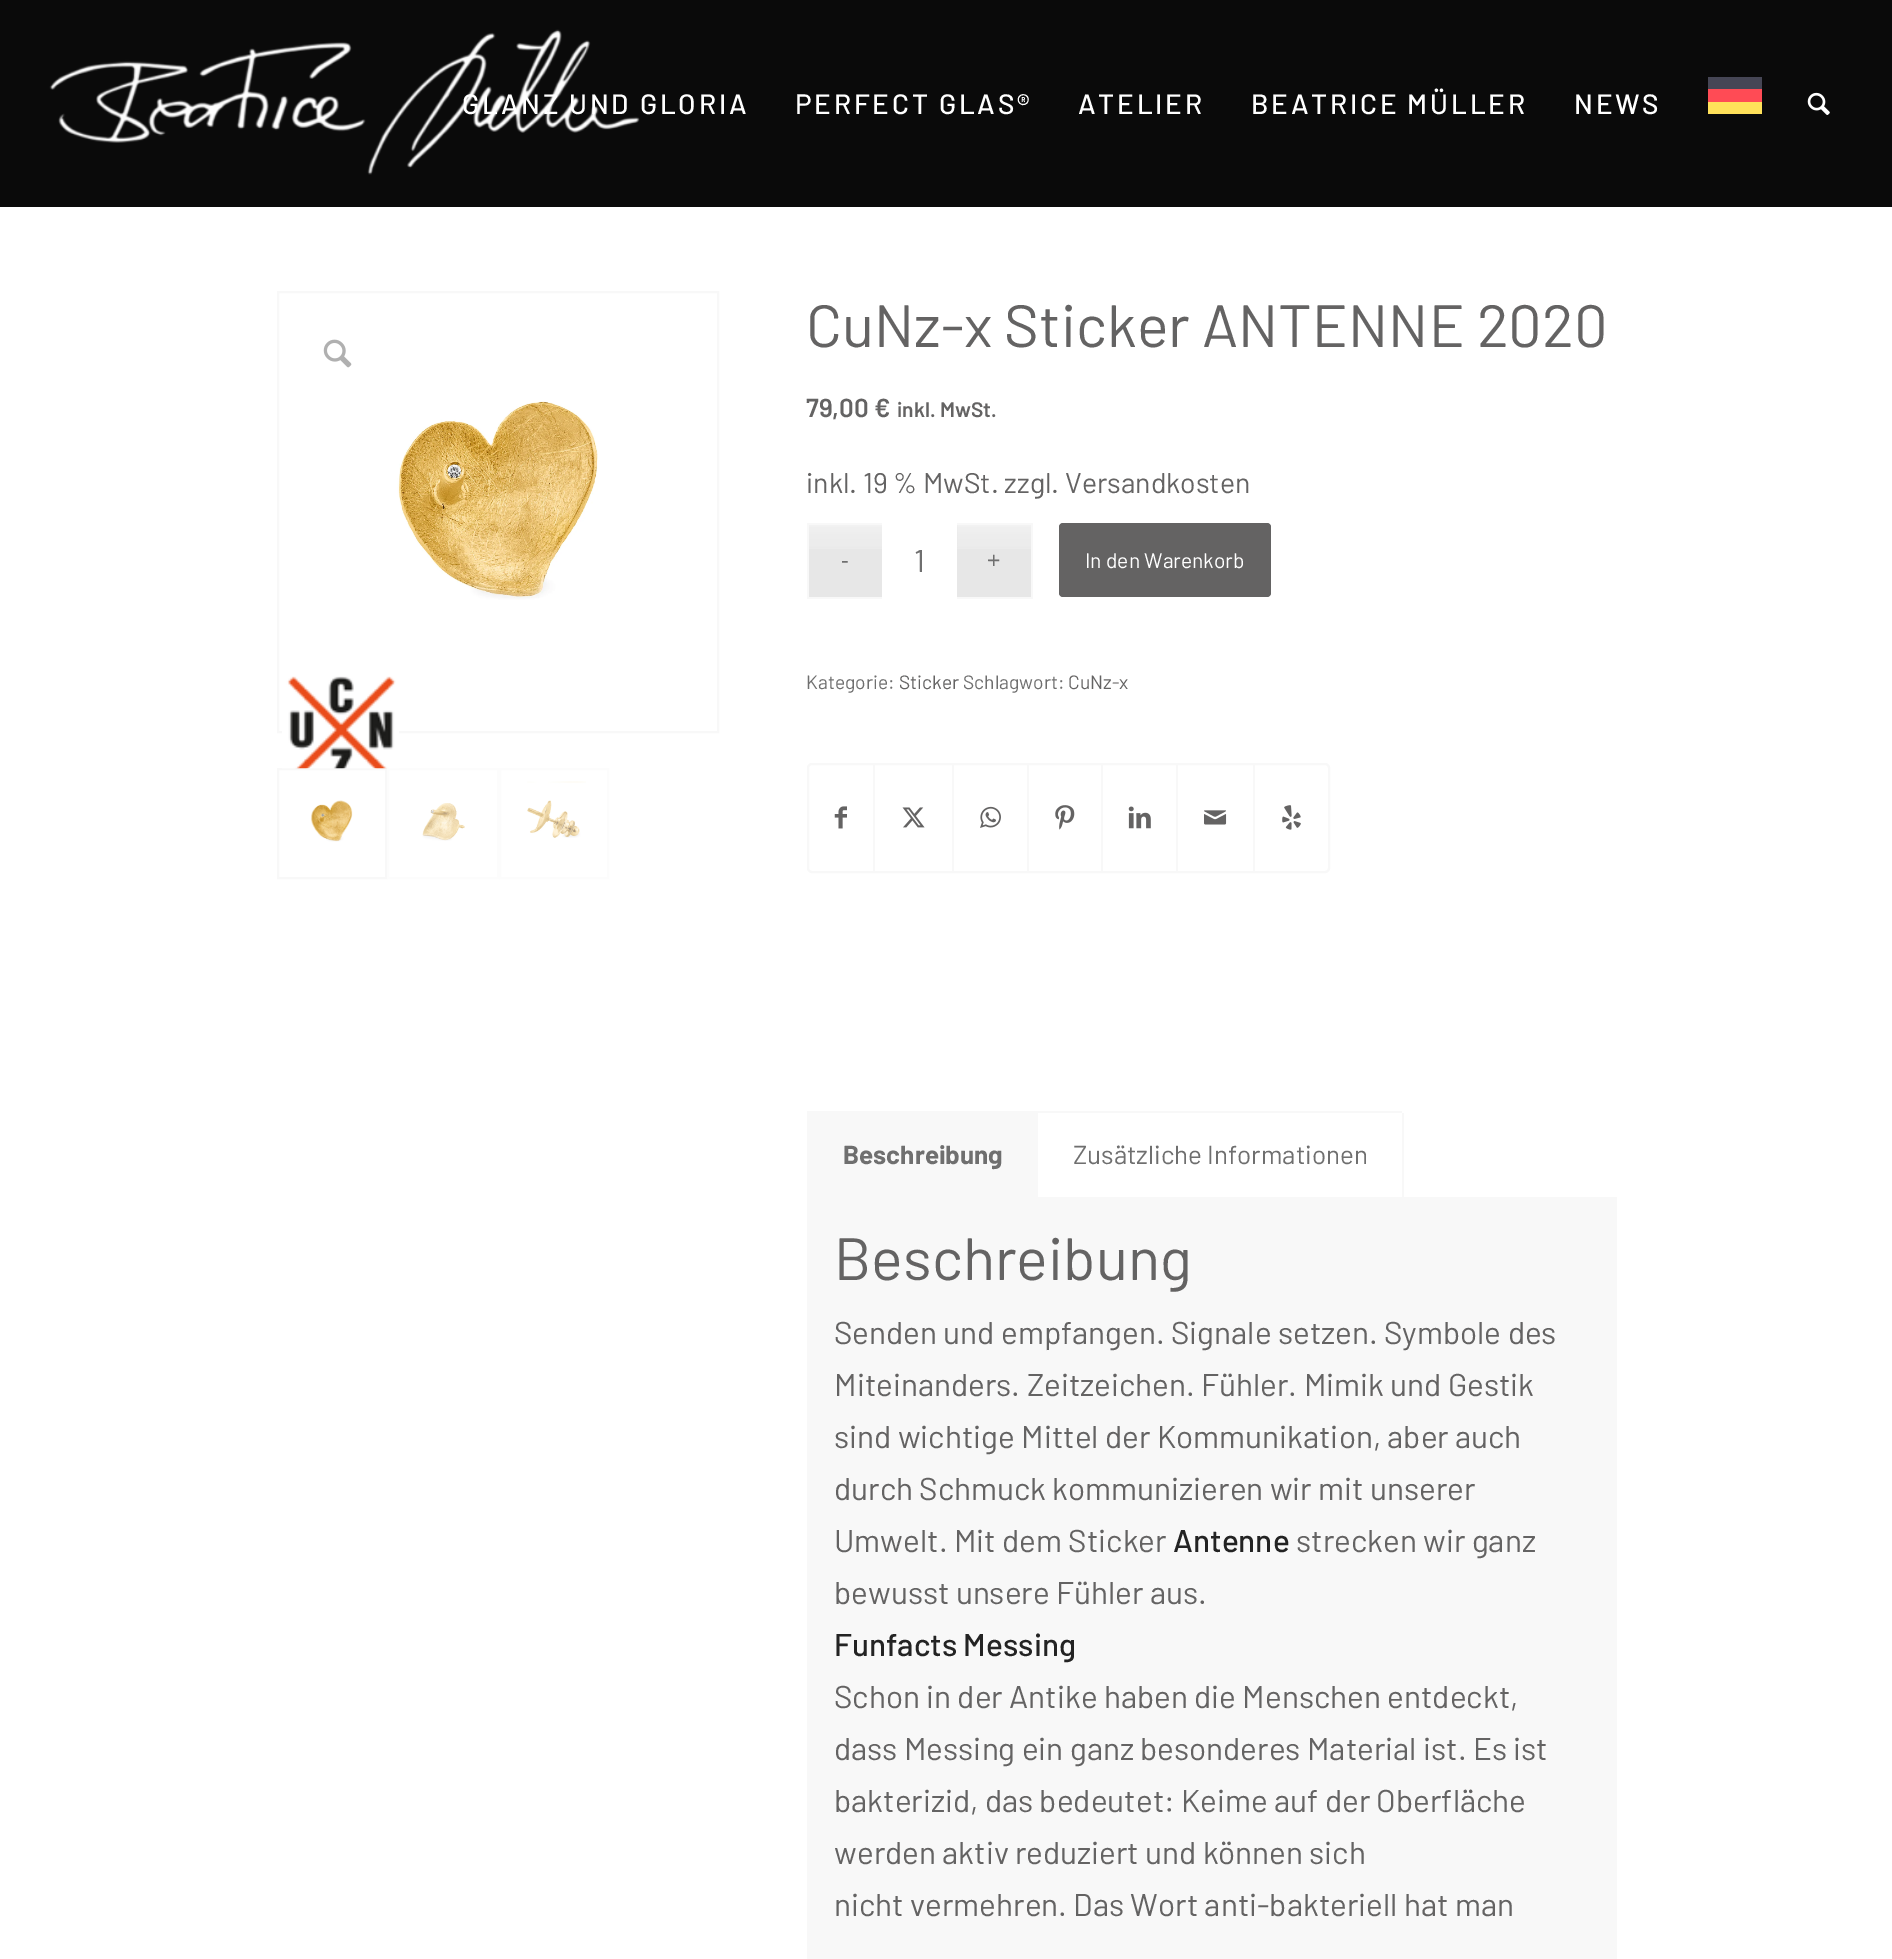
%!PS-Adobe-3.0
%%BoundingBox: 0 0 1892 1959
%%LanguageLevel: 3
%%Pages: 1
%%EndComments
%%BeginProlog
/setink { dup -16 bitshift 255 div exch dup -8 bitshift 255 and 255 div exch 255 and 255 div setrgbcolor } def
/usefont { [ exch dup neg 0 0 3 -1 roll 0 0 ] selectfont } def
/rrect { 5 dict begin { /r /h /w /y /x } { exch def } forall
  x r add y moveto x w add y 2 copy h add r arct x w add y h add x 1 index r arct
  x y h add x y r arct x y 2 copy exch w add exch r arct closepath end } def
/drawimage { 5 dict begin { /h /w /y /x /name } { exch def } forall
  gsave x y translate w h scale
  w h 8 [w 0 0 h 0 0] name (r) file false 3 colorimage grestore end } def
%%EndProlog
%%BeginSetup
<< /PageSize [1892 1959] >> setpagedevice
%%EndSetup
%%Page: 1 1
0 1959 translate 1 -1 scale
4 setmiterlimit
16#FFFFFF setink
0 0 1892 1959 rectfill
16#0A0A0A setink
0 0 1892 207 rectfill
(img1.raw) 49 29 591 146 drawimage
/Barlow-Medium 28 usefont
16#FFFFFF setink
462 114 moveto 2.75 0 (GLANZ UND GLORIA) ashow
795 114 moveto 2.75 0 (PERFECT GLAS®) ashow
1078 114 moveto 2.75 0 (ATELIER) ashow
1251 114 moveto 2.75 0 (BEATRICE MÜLLER) ashow
1574 114 moveto 2.75 0 (NEWS) ashow
[
    [1708 77 54 12 16#464655]
    [1708 89 54 13 16#FF4B55]
    [1708 102 54 12 16#FFE15A]
] { aload pop setink rectfill } forall
(img2.raw) 1807 92 23 23 drawimage
16#F8F8F8 setink
2 setlinewidth
278 292 440 440 rectstroke
(img3.raw) 397 401 201 199 drawimage
278 769 108 109 rectstroke
16#FCFCFC setink
388 769 110 109 rectstroke
(img4.raw) 282 676 117 93 drawimage
(img5.raw) 310 800 43 42 drawimage
(img6.raw) 422 803 43 38 drawimage
500 769 108 109 rectstroke
(img7.raw) 527 781 59 57 drawimage
(img8.raw) 323 339 29 29 drawimage
/Barlow-Regular 59.5 usefont
16#646363 setink
806 347 moveto (CuNz-x Sticker ANTENNE 2020) show
/Barlow-SemiBold 26 usefont
806 417 moveto (79,00 €) show
/Barlow-SemiBold 21 usefont
897 417 moveto (inkl. MwSt.) show
/Barlow-Regular 28.4 usefont
806 493 moveto (inkl. 19 % MwSt. zzgl. Versandkosten) show
16#E7E7E7 setink
809 525 73 72 rectfill
(img9.raw) 809 525 73 24 drawimage
957 525 74 72 rectfill
(img10.raw) 957 525 74 24 drawimage
/LiberationSans-Regular 23 usefont
16#6F6F6F setink
841 568 moveto (-) show
[
    [807 523 75 2 16#F8F8F8]
    [807 597 75 2 16#F8F8F8]
    [807 523 2 76 16#F8F8F8]
] { aload pop setink rectfill } forall
/Barlow-Regular 31.5 usefont
16#6F6F6F setink
914 572 moveto (1) show
/LiberationSans-Regular 23 usefont
987 568 moveto (+) show
[
    [957 523 76 2 16#F8F8F8]
    [1031 523 2 76 16#F8F8F8]
    [957 597 76 2 16#F8F8F8]
] { aload pop setink rectfill } forall
16#646363 setink
1059 523 212 74 4 rrect fill
/Barlow-Regular 21 usefont
16#FFFFFF setink
1085 568 moveto (In den Warenkorb) show
/Barlow-Regular 19.25 usefont
16#6F6F6F setink
806 689 moveto (Kategorie:) show
16#646363 setink
899 689 moveto (Sticker) show
16#6F6F6F setink
963 689 moveto (Schlagwort:) show
16#646363 setink
1068 689 moveto (CuNz-x) show
16#F8F8F8 setink
808 764 521 108 4 rrect stroke
(img11.raw) 834 806 13 23 drawimage
873 765 2 107 rectfill
(img12.raw) 902 807 23 21 drawimage
952 765 2 107 rectfill
(img13.raw) 980 806 21 22 drawimage
1027 765 2 107 rectfill
(img14.raw) 1055 805 20 25 drawimage
1101 765 2 107 rectfill
(img15.raw) 1128 806 23 23 drawimage
1176 765 2 107 rectfill
(img16.raw) 1204 810 23 15 drawimage
1253 765 2 107 rectfill
(img17.raw) 1282 805 19 25 drawimage
1036 1111 366 2 rectfill
807 1111 231 86 rectfill
/Barlow-Bold 26 usefont
16#6F6F6F setink
843 1164 moveto (Beschreibung) show
16#F8F8F8 setink
807 1197 810 762 rectfill
1402 1113 2 86 rectfill
/Barlow-Regular 26 usefont
16#6F6F6F setink
1073 1164 moveto (Zusätzliche Informationen) show
/Barlow-Regular 59.5 usefont
16#646363 setink
834 1280 moveto (Beschreibung) show
/Barlow-Regular 31.5 usefont
[
    [(Senden und empfangen. Signale setzen. Symbole des) 834 1344]
    [(Miteinanders. Zeitzeichen. Fühler. Mimik und Gestik) 834 1396]
    [(sind wichtige Mittel der Kommunikation, aber auch) 834 1448]
    [(durch Schmuck kommunizieren wir mit unserer) 834 1500]
    [(Umwelt. Mit dem Sticker) 834 1552]
] { aload pop moveto show } forall
/Barlow-Medium 31.5 usefont
16#232323 setink
1173 1552 moveto (Antenne) show
/Barlow-Regular 31.5 usefont
16#646363 setink
1296 1552 moveto (strecken wir ganz) show
834 1604 moveto (bewusst unsere Fühler aus.) show
/Barlow-Medium 31.5 usefont
16#232323 setink
834 1656 moveto (Funfacts Messing) show
/Barlow-Regular 31.5 usefont
16#646363 setink
[
    [(Schon in der Antike haben die Menschen entdeckt,) 834 1708]
    [(dass Messing ein ganz besonderes Material ist. Es ist) 834 1760]
    [(bakterizid, das bedeutet: Keime auf der Oberfläche) 834 1812]
    [(werden aktiv reduziert und können sich) 834 1864]
    [(nicht vermehren. Das Wort anti-bakteriell hat man) 834 1916]
] { aload pop moveto show } forall
showpage
%%EOF
